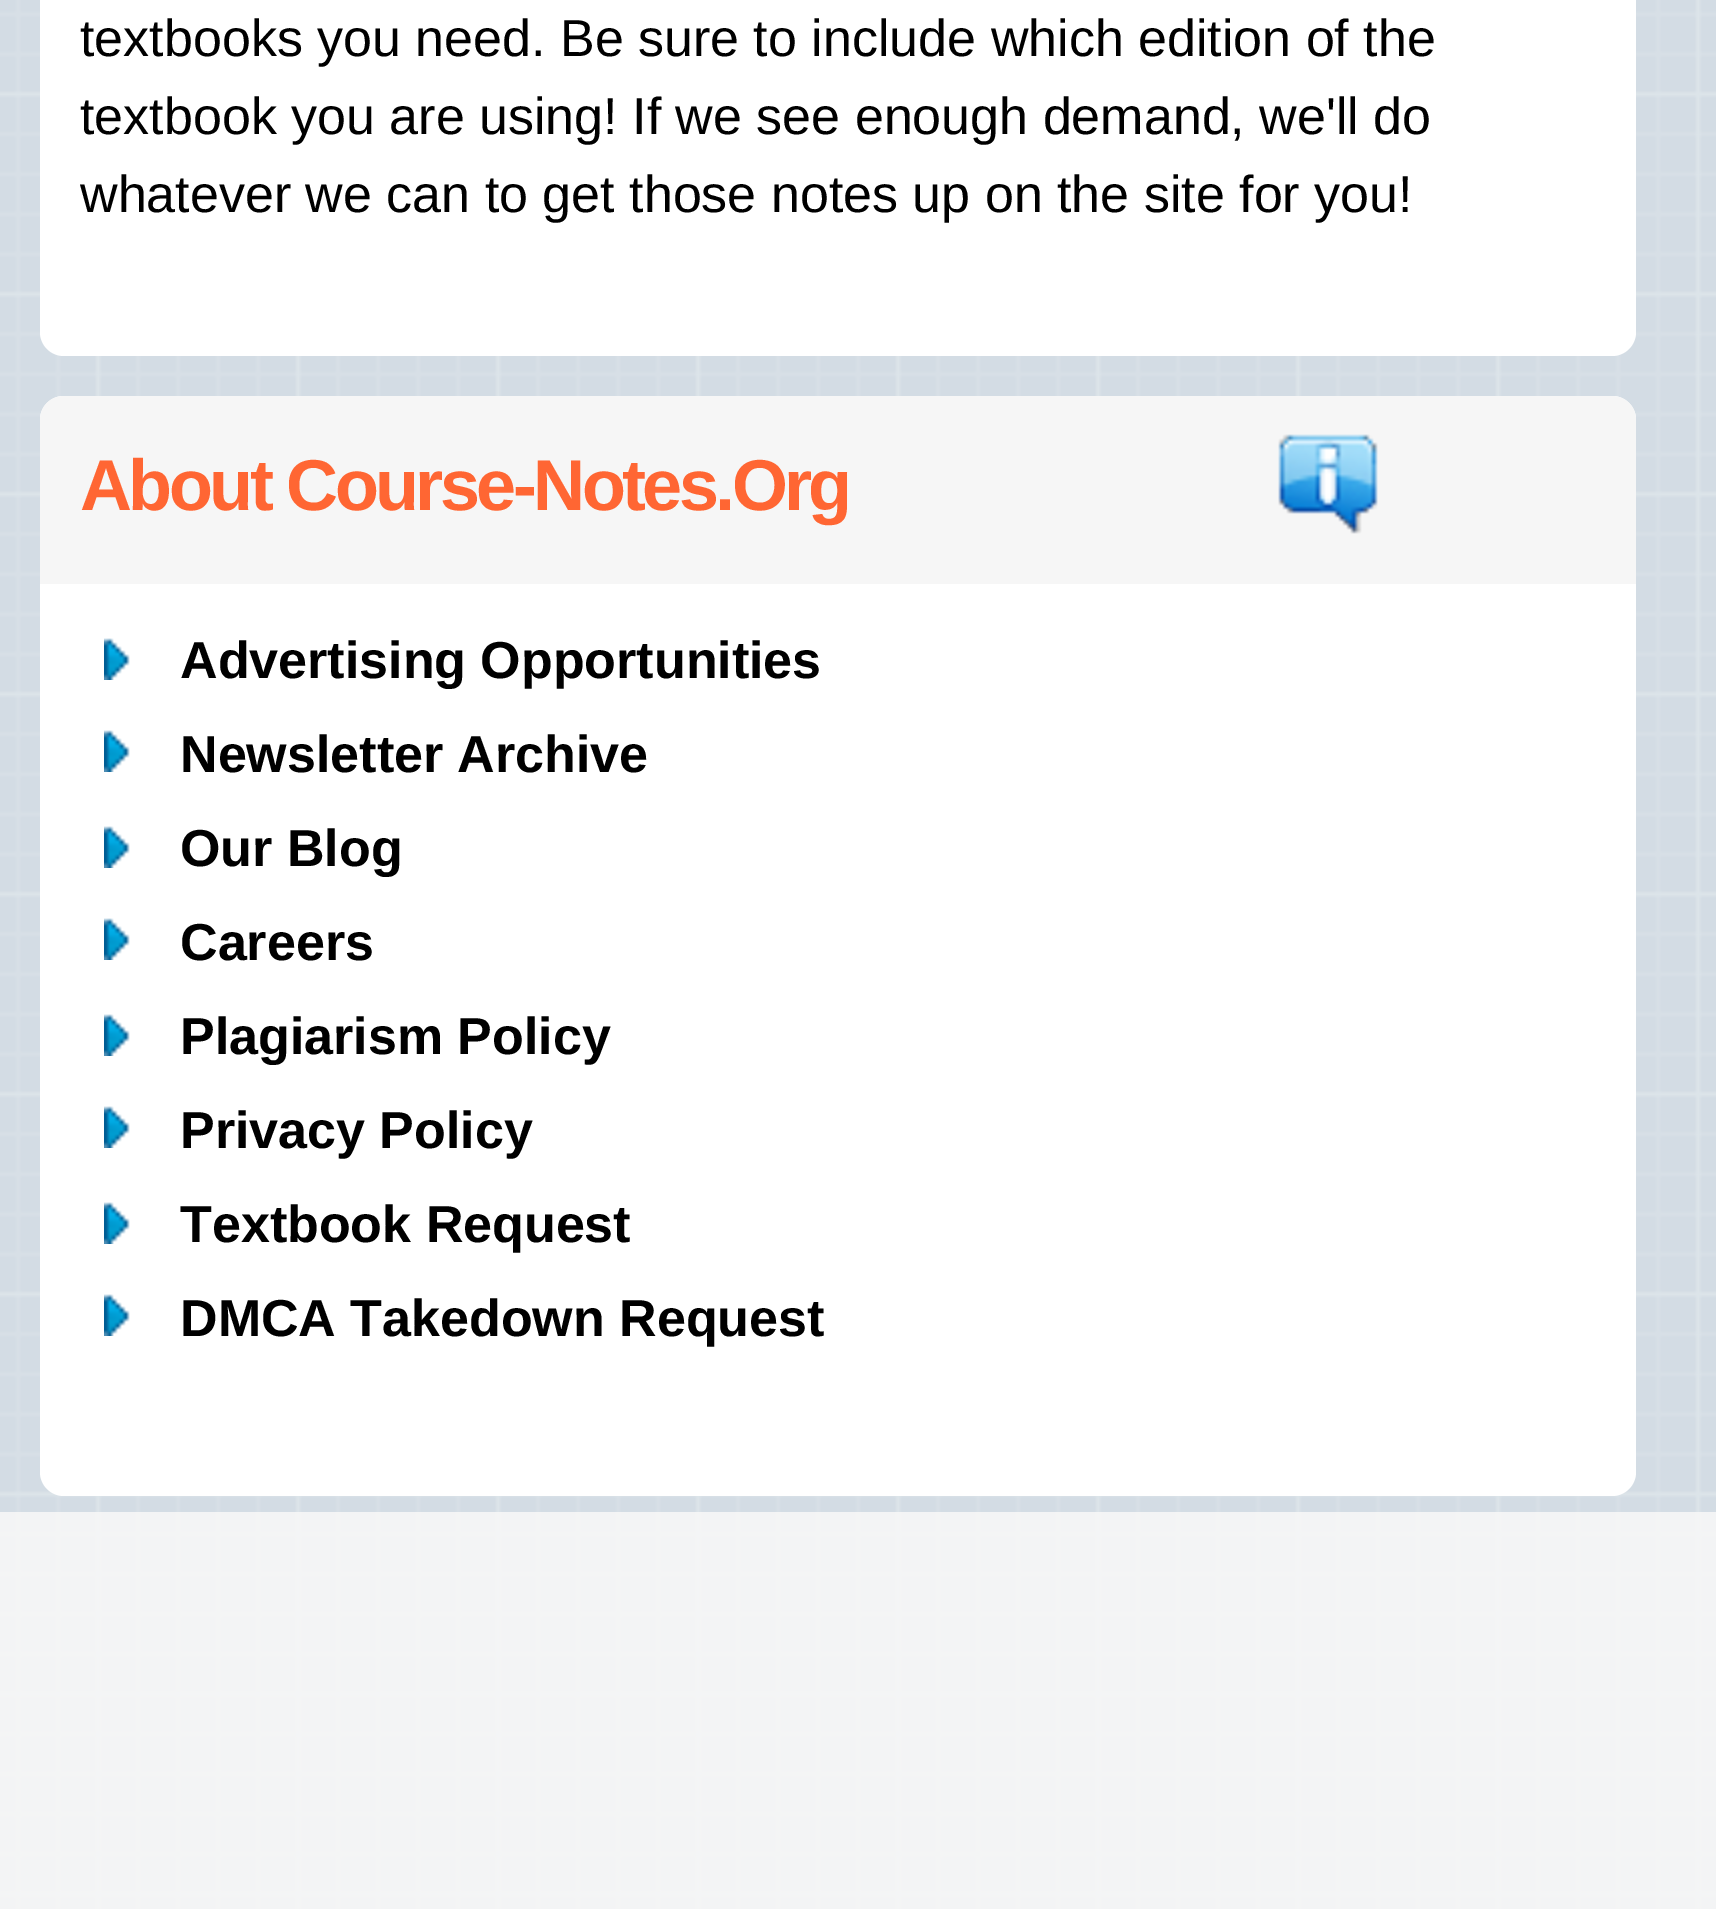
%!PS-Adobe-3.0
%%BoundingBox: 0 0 1716 1909
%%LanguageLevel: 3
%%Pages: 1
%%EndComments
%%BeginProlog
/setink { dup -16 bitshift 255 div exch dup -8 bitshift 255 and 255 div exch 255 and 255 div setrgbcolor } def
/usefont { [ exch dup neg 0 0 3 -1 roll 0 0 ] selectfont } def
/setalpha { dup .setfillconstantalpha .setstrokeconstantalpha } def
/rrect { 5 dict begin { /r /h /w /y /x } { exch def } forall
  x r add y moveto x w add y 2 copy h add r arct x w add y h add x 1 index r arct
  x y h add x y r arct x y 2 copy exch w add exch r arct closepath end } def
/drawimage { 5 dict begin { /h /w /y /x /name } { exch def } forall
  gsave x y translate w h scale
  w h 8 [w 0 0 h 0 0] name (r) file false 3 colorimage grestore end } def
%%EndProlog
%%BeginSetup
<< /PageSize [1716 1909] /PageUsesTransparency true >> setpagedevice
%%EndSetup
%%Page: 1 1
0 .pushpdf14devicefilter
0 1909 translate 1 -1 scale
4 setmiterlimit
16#FFFFFF setink
0 0 1716 1909 rectfill
(img1.raw) 0 0 1716 1909 drawimage
40 -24 1596 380 24 rrect fill
/LiberationSans-Regular 52 usefont
16#000000 setink
[
    [(textbooks you need. Be sure to include which edition of the) 80 56]
    [(textbook you are using! If we see enough demand, we'll do) 80 134]
    [(whatever we can to get those notes up on the site for you!) 80 212]
] { aload pop moveto show } forall
16#FFFFFF setink
40 396 1596 1100 24 rrect fill
16#F6F6F6 setink
64 396 moveto 1612 396 lineto 1625.5 396 1636 406.5 1636 420 curveto 1636 584 lineto 40 584 lineto 40 420 lineto 40 406.5 50.5 396 64 396 curveto closepath fill
(img2.raw) 1278 434 100 100 drawimage
/LiberationSans-Bold 72 usefont
16#FF6633 setink
80 510 moveto -3.6 0 (About Course-Notes.Org) ashow
(img3.raw) 104 638 26 42 drawimage
/LiberationSans-Bold 52 usefont
16#000000 setink
180 678 moveto (Advertising Opportunities) show
(img3.raw) 104 730 26 42 drawimage
180 772 moveto (Newsletter Archive) show
(img3.raw) 104 826 26 42 drawimage
180 866 moveto (Our Blog) show
(img3.raw) 104 918 26 42 drawimage
180 960 moveto (Careers) show
(img3.raw) 104 1014 26 42 drawimage
180 1054 moveto (Plagiarism Policy) show
(img3.raw) 104 1106 26 42 drawimage
180 1148 moveto (Privacy Policy) show
(img3.raw) 104 1202 26 42 drawimage
180 1242 moveto (Textbook Request) show
(img3.raw) 104 1294 26 42 drawimage
180 1336 moveto (DMCA Takedown Request) show
0.9 setalpha
16#F7F7F7 setink
0 1512 1716 397 rectfill
.poppdf14devicefilter showpage
%%EOF
